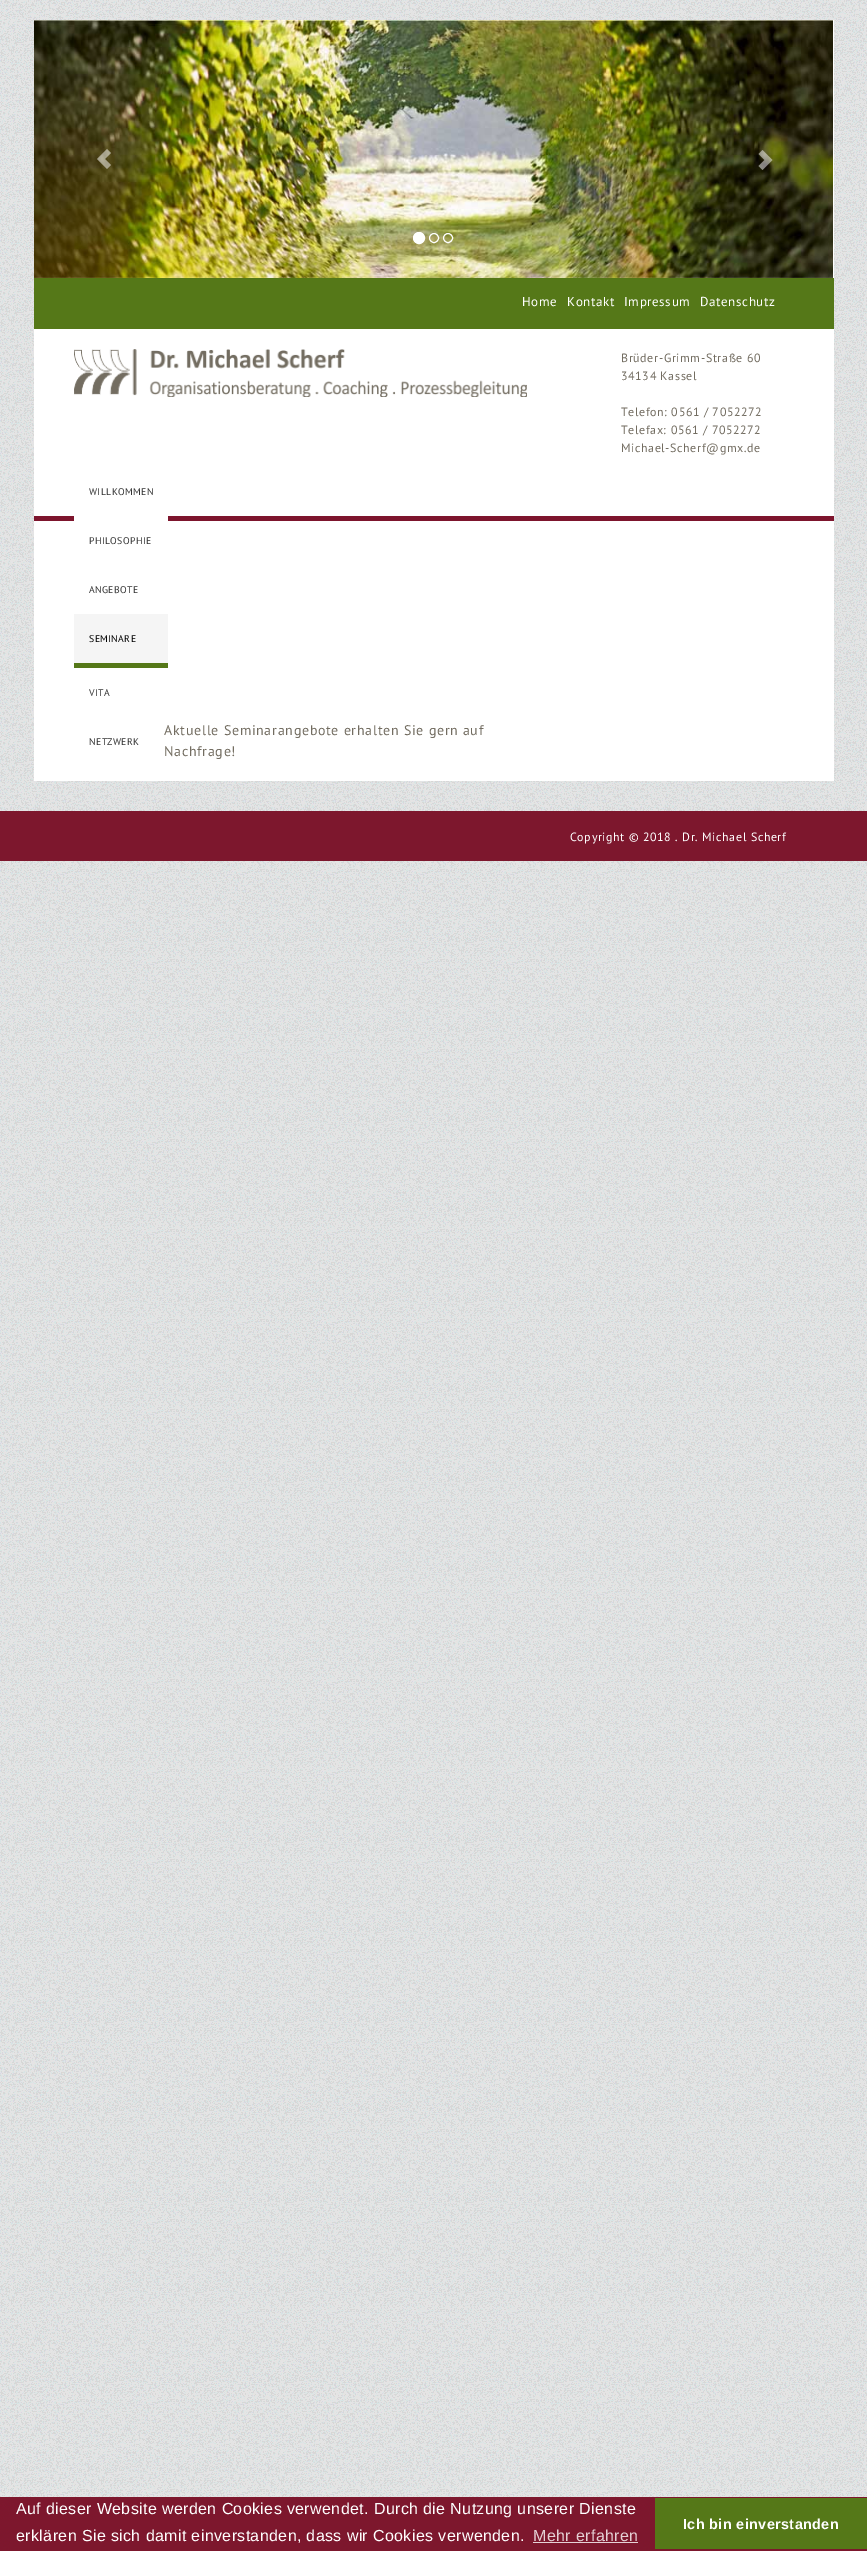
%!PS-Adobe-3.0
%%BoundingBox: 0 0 867 2551
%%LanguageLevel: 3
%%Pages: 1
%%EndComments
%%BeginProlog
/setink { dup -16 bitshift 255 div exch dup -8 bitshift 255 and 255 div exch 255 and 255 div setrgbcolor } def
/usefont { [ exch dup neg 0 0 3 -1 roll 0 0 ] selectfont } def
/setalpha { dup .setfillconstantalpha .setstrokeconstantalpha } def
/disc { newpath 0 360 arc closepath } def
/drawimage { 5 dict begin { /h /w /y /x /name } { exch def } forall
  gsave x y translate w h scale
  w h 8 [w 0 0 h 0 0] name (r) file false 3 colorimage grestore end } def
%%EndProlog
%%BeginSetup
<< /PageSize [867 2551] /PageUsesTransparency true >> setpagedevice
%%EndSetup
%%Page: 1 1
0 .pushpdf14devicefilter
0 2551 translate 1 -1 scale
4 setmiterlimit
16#FFFFFF setink
0 0 867 2551 rectfill
(img1.raw) 0 0 867 2497 drawimage
34 20 800 761 rectfill
(img2.raw) 34 20 799 258 drawimage
0.5 setalpha
97 159 moveto 107 169 lineto 111 165 lineto 105 159 lineto 111 153 lineto 107 149 lineto closepath fill
758.5 166 moveto 764.5 160 lineto 758.5 154 lineto 762.5 150 lineto 772.5 160 lineto 762.5 170 lineto closepath fill
1 setalpha
419 238 5.5 disc gsave fill grestore
stroke
434 238 4.5 disc stroke
448 238 4.5 disc stroke
16#557818 setink
34 278 800 51 rectfill
/PTSans-Regular 13 usefont
16#FFFFFF setink
522 306 moveto 0.6 0 (Home) ashow
567 306 moveto 0.6 0 (Kontakt) ashow
624 306 moveto 0.6 0 (Impressum) ashow
700 306 moveto 0.6 0 (Datenschutz) ashow
(img3.raw) 74 349 453 48 drawimage
/PTSans-Regular 12 usefont
16#736D61 setink
621 362 moveto 0.6 0 (Brüder-Grimm-Straße 60) ashow
621 380 moveto 0.6 0 (34134 Kassel) ashow
621 416 moveto 0.6 0 (Telefon: 0561 / 7052272) ashow
621 434 moveto 0.6 0 (Telefax: 0561 / 7052272) ashow
621 452 moveto 0.6 0 (Michael-Scherf@gmx.de) ashow
16#7D152D setink
34 516 800 5 rectfill
16#FFFFFF setink
74 516 94 5 rectfill
/PTSans-Regular 9.75 usefont
16#333333 setink
89 495 moveto 0.38 0 (WILLKOMMEN) ashow
89 544 moveto 0.38 0 (PHILOSOPHIE) ashow
89 593 moveto 0.38 0 (ANGEBOTE) ashow
16#557818 setink
74 663 94 5 rectfill
16#F5F5F5 setink
74 614 94 49 rectfill
16#000000 setink
89 642 moveto 0.38 0 (SEMINARE) ashow
16#333333 setink
89 696 moveto 0.38 0 (VITA) ashow
89 745 moveto 0.38 0 (NETZWERK) ashow
/PTSans-Regular 14 usefont
16#736D61 setink
164 735 moveto 0.7 0 (Aktuelle Seminarangebote erhalten Sie gern auf) ashow
164 756 moveto 0.7 0 (Nachfrage!) ashow
16#7D172D setink
0 811 867 50 rectfill
/PTSans-Regular 12 usefont
16#FFFFFF setink
570 841 moveto 0.6 0 (Copyright © 2018 . Dr. Michael Scherf) ashow
16#7D172D setink
0 2497 867 54 rectfill
/LiberationSans-Regular 16 usefont
16#FFFFFF setink
16 2514 moveto 0.38 0 (Auf dieser Website werden Cookies verwendet. Durch die Nutzung unserer Dienste) ashow
16 2541 moveto 0.38 0 (erklären Sie sich damit einverstanden, dass wir Cookies verwenden.) ashow
16#E5D1D5 setink
533 2541 moveto 0.38 0 (Mehr erfahren) ashow
533 2542 105 1 rectfill
16#557818 setink
655 2498 212 51 rectfill
/LiberationSans-Bold 14.4 usefont
16#FFFFFF setink
683 2529 moveto 0.38 0 (Ich bin einverstanden) ashow
.poppdf14devicefilter showpage
%%EOF
